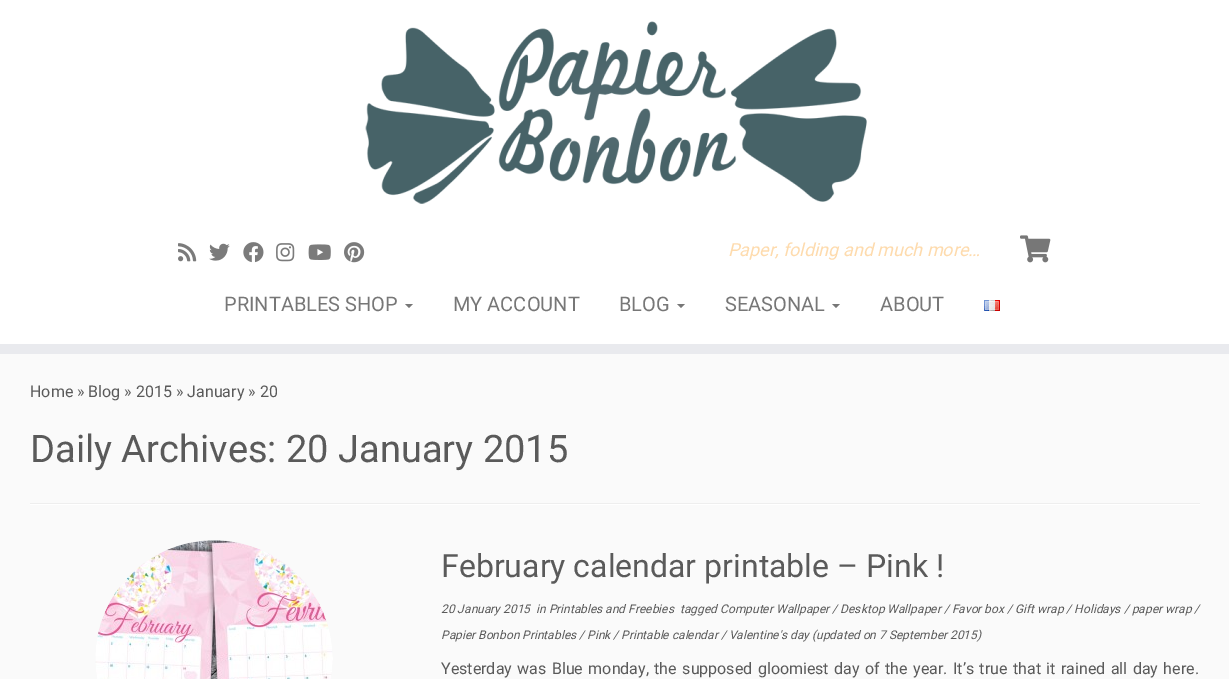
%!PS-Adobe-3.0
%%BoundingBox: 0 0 1229 679
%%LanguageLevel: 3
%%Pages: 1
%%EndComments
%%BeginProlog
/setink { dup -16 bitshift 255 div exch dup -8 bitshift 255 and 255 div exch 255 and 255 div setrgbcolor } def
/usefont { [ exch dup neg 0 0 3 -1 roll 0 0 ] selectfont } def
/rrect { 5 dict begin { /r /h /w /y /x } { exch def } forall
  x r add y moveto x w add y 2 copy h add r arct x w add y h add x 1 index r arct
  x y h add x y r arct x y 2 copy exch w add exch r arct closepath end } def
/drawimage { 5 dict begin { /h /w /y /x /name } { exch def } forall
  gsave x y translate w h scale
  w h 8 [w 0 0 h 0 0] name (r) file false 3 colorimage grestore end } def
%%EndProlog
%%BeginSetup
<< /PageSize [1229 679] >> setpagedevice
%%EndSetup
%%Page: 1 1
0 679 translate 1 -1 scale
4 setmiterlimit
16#FAFAFA setink
0 0 1229 679 rectfill
16#FFFFFF setink
0 0 1229 344 rectfill
16#E9EAEE setink
0 344 1229 10 rectfill
(img1.raw) 365 21 502 183 drawimage
(img2.raw) 178 243 19 19 drawimage
(img3.raw) 209 243 21 18 drawimage
(img4.raw) 243 242 21 21 drawimage
(img5.raw) 276 243 19 19 drawimage
(img6.raw) 308 244 23 16 drawimage
(img7.raw) 344 242 21 21 drawimage
/Roboto-Italic 18 usefont
16#FEDBAD setink
728 256 moveto (Paper, folding and much more…) show
(img8.raw) 1020 235 31 28 drawimage
/Roboto-Regular 20 usefont
16#777777 setink
224 311 moveto (PRINTABLES SHOP) show
405 304 moveto 413 304 lineto 409 308 lineto closepath fill
453 311 moveto (MY ACCOUNT) show
619 311 moveto (BLOG) show
677 304 moveto 685 304 lineto 681 308 lineto closepath fill
725 311 moveto (SEASONAL) show
832 304 moveto 840 304 lineto 836 308 lineto closepath fill
880 311 moveto (ABOUT) show
(img9.raw) 984 300 16 11 drawimage
/Roboto-Regular 16 usefont
16#5A5A5A setink
30 397 moveto (Home » Blog » 2015 » January » 20) show
/Roboto-Regular 38 usefont
30 462 moveto (Daily Archives: 20 January 2015) show
16#EEEEEE setink
30 503 1170 1 rectfill
16#FFFFFF setink
30 504 1170 1 rectfill
(img10.raw) 95 540 238 139 drawimage
/Roboto-Regular 32 usefont
16#5A5A5A setink
441 577 moveto (February calendar printable – Pink !) show
/Roboto-Italic 12 usefont
441 613 moveto (20 January 2015) show
441 639 moveto (Papier Bonbon Printables / Pink / Printable calendar / Valentine's day \(updated on 7 September 2015\)) show
/Roboto-Regular 16 usefont
441 674 moveto 1.5 0 32 (Yesterday was Blue monday, the supposed gloomiest day of the year. It’s true that it rained all day here.) widthshow
gsave
79 535 269 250 rectclip
16#FAFAFA setink
146 setlinewidth
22 467 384 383 191.5 rrect stroke
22 467 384 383 191.5 rrect stroke
grestore
/Roboto-Italic 12 usefont
536 613 moveto (in Printables and Freebies) show
680 613 moveto (tagged Computer Wallpaper / Desktop Wallpaper / Favor box / Gift wrap / Holidays / paper wrap /) show
showpage
%%EOF
